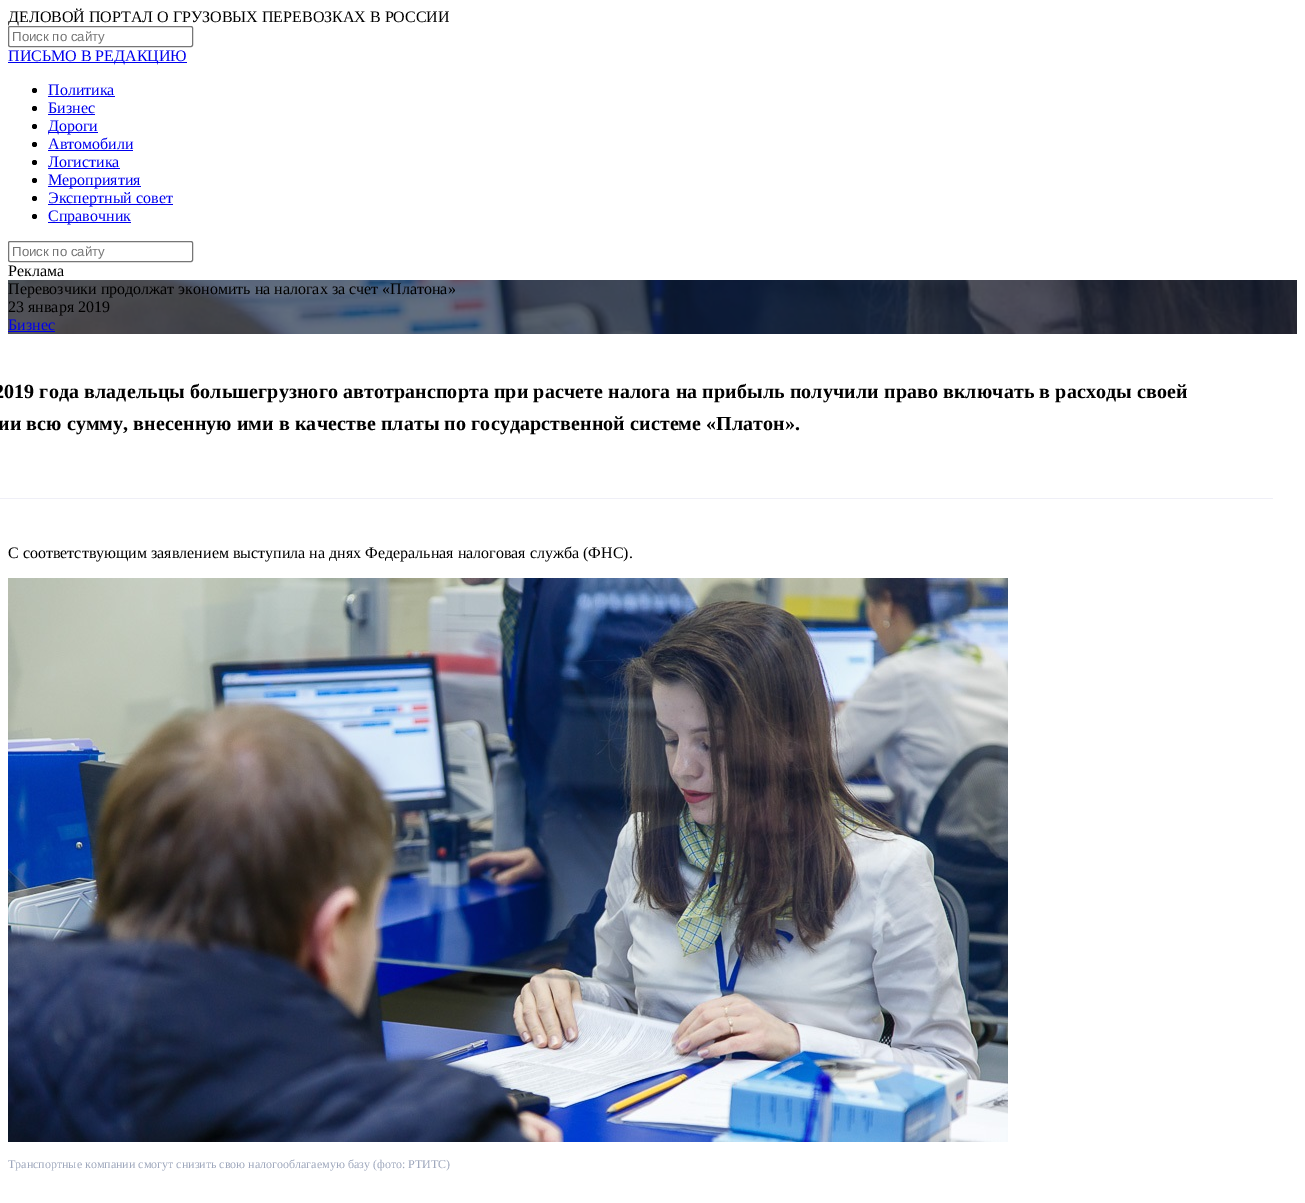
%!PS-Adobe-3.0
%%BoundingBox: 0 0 1305 1203
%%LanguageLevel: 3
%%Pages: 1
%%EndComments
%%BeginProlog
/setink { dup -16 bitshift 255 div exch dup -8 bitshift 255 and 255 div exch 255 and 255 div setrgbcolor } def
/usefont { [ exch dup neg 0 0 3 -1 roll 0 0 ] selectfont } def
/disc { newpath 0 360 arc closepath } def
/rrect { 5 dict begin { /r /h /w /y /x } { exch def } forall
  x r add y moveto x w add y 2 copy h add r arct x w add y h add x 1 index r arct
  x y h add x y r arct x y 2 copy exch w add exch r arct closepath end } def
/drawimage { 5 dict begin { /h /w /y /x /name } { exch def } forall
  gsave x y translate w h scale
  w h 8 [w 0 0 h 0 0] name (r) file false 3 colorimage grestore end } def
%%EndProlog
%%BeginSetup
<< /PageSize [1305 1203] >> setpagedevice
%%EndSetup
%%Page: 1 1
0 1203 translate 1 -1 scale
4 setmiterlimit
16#FFFFFF setink
0 0 1305 1203 rectfill
/LiberationSerif-Regular 16 usefont
16#000000 setink
8 22 moveto (ДЕЛОВОЙ ПОРТАЛ О ГРУЗОВЫХ ПЕРЕВОЗКАХ В РОCСИИ) show
16#767676 setink
8.5 26.5 184 20 1.5 rrect stroke
/LiberationSans-Regular 13.25 usefont
16#757575 setink
12 41 moveto (Поиск по сайту) show
16#0000EE setink
8 62 179 1 rectfill
/LiberationSerif-Regular 16 usefont
8 61 moveto (ПИСЬМО В РЕДАКЦИЮ) show
16#000000 setink
34.5 90.5 2.5 disc fill
16#0000EE setink
48 95 moveto (Политика) show
48 96 67 1 rectfill
16#000000 setink
34.5 108.5 2.5 disc fill
16#0000EE setink
48 113 moveto (Бизнес) show
48 114 47 1 rectfill
16#000000 setink
34.5 126.5 2.5 disc fill
16#0000EE setink
48 132 50 1 rectfill
48 131 moveto (Дороги) show
16#000000 setink
34.5 144.5 2.5 disc fill
16#0000EE setink
48 149 moveto (Автомобили) show
48 150 85 1 rectfill
16#000000 setink
34.5 162.5 2.5 disc fill
16#0000EE setink
48 167 moveto (Логистика) show
48 168 72 1 rectfill
16#000000 setink
34.5 180.5 2.5 disc fill
16#0000EE setink
48 186 93 1 rectfill
48 185 moveto (Мероприятия) show
16#000000 setink
34.5 198.5 2.5 disc fill
16#0000EE setink
48 204 125 1 rectfill
48 203 moveto (Экспертный совет) show
16#000000 setink
34.5 216.5 2.5 disc fill
16#0000EE setink
48 222 83 1 rectfill
48 221 moveto (Справочник) show
16#767676 setink
8.5 241.5 184 20 1.5 rrect stroke
/LiberationSans-Regular 13.25 usefont
16#757575 setink
12 256 moveto (Поиск по сайту) show
/LiberationSerif-Regular 16 usefont
16#000000 setink
8 276 moveto (Реклама) show
(img1.raw) 8 280 1289 54 drawimage
8 294 moveto (Перевозчики продолжат экономить на налогах за счет «Платона») show
8 312 moveto (23 января 2019) show
16#0000EE setink
8 330 moveto (Бизнес) show
8 331 47 1 rectfill
16#EFEFF7 setink
0 498 1273 1 rectfill
/LiberationSerif-Bold 20 usefont
16#000000 setink
-6 398 moveto 0.1 0 (2019 года владельцы большегрузного автотранспорта при расчете налога на прибыль получили право включать в расходы своей) ashow
-2 430 moveto 0.1 0 (ии всю сумму, внесенную ими в качестве платы по государственной системе «Платон».) ashow
/LiberationSerif-Regular 16 usefont
8 558 moveto (С соответствующим заявлением выступила на днях Федеральная налоговая служба \(ФНС\).) show
(img2.raw) 8 578 1000 564 drawimage
/LiberationSerif-Regular 12 usefont
16#9FA8BD setink
8 1168 moveto (Транспортные компании смогут снизить свою налогооблагаемую базу \(фото: РТИТС\)) show
showpage
%%EOF
